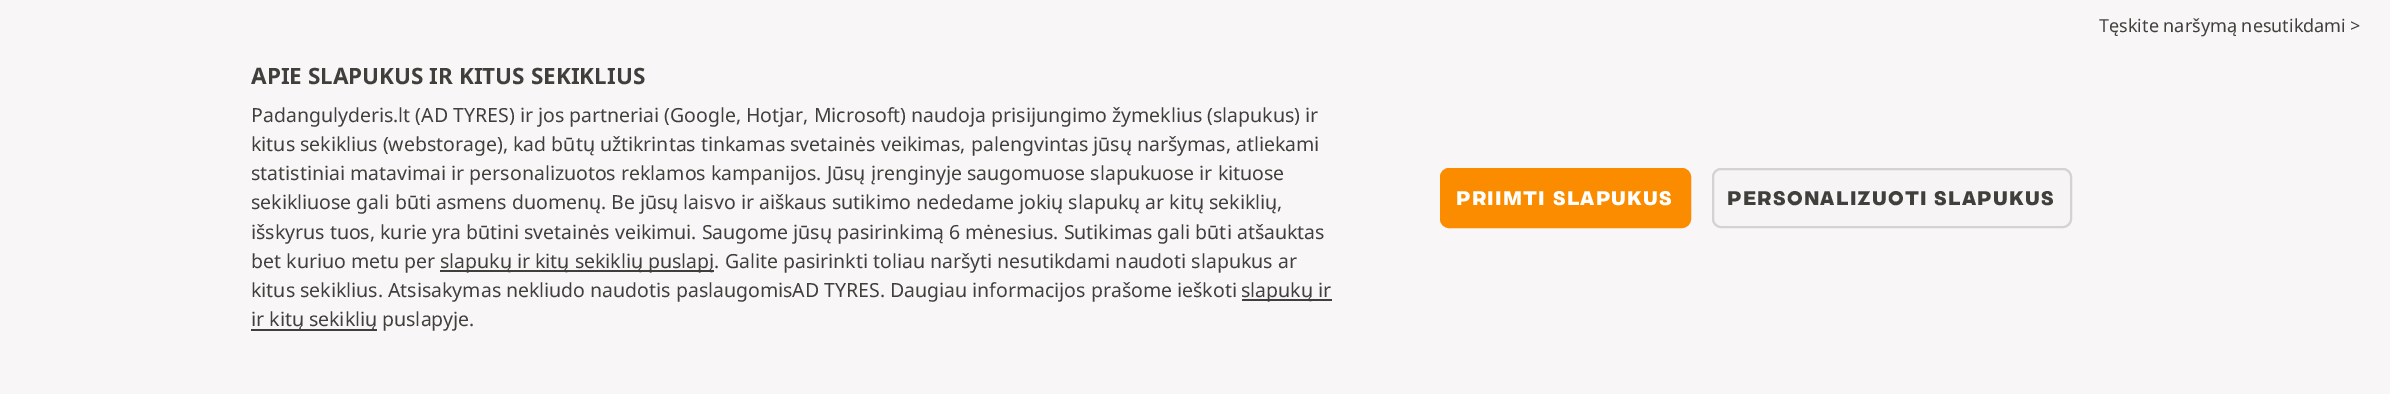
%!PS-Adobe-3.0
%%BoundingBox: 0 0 2390 394
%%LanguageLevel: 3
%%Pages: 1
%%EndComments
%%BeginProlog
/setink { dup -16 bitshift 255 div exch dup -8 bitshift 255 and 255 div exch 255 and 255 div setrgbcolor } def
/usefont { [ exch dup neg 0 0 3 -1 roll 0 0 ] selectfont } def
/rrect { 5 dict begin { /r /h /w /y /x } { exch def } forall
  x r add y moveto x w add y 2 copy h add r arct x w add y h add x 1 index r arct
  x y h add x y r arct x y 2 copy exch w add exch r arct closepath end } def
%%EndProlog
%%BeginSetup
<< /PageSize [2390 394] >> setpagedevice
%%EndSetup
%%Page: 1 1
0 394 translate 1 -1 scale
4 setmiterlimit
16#F8F6F7 setink
0 0 2390 394 rectfill
/NotoSans-Regular 18 usefont
16#413F3C setink
2099 32 moveto (Tęskite naršymą nesutikdami >) show
/NotoSans-Bold 22.5 usefont
251 84 moveto (APIE SLAPUKUS IR KITUS SEKIKLIUS) show
/NotoSans-Regular 19.5 usefont
[
    [(Padangulyderis.lt \(AD TYRES\) ir jos partneriai \(Google, Hotjar, Microsoft\) naudoja prisijungimo žymeklius \(slapukus\) ir) 251 122]
    [(kitus sekiklius \(webstorage\), kad būtų užtikrintas tinkamas svetainės veikimas, palengvintas jūsų naršymas, atliekami) 251 151]
    [(statistiniai matavimai ir personalizuotos reklamos kampanijos. Jūsų įrenginyje saugomuose slapukuose ir kituose) 251 180]
    [(sekikliuose gali būti asmens duomenų. Be jūsų laisvo ir aiškaus sutikimo nededame jokių slapukų ar kitų sekiklių,) 251 209]
    [(išskyrus tuos, kurie yra būtini svetainės veikimui. Saugome jūsų pasirinkimą 6 mėnesius. Sutikimas gali būti atšauktas) 251 239]
    [(bet kuriuo metu per) 251 268]
] { aload pop moveto show } forall
440 270 274 2 rectfill
440 268 moveto (slapukų ir kitų sekiklių puslapį. Galite pasirinkti toliau naršyti nesutikdami naudoti slapukus ar) show
251 297 moveto (kitus sekiklius. Atsisakymas nekliudo naudotis paslaugomisAD TYRES. Daugiau informacijos prašome ieškoti) show
1242 299 90 2 rectfill
1241 297 moveto (slapukų ir) show
251 329 126 2 rectfill
251 326 moveto (ir kitų sekiklių puslapyje.) show
16#FB8C00 setink
1441 169 249 58 8 rrect gsave fill grestore
2 setlinewidth
stroke
/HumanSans-Black 21 usefont
16#FFFFFF setink
1456 205 moveto 1.2 0 (PRIIMTI SLAPUKUS) ashow
16#F6F4F4 setink
1713 169 358 58 8 rrect gsave fill grestore
16#D3D3D3 setink
stroke
16#413F3C setink
1727 205 moveto 1.2 0 (PERSONALIZUOTI SLAPUKUS) ashow
showpage
%%EOF
